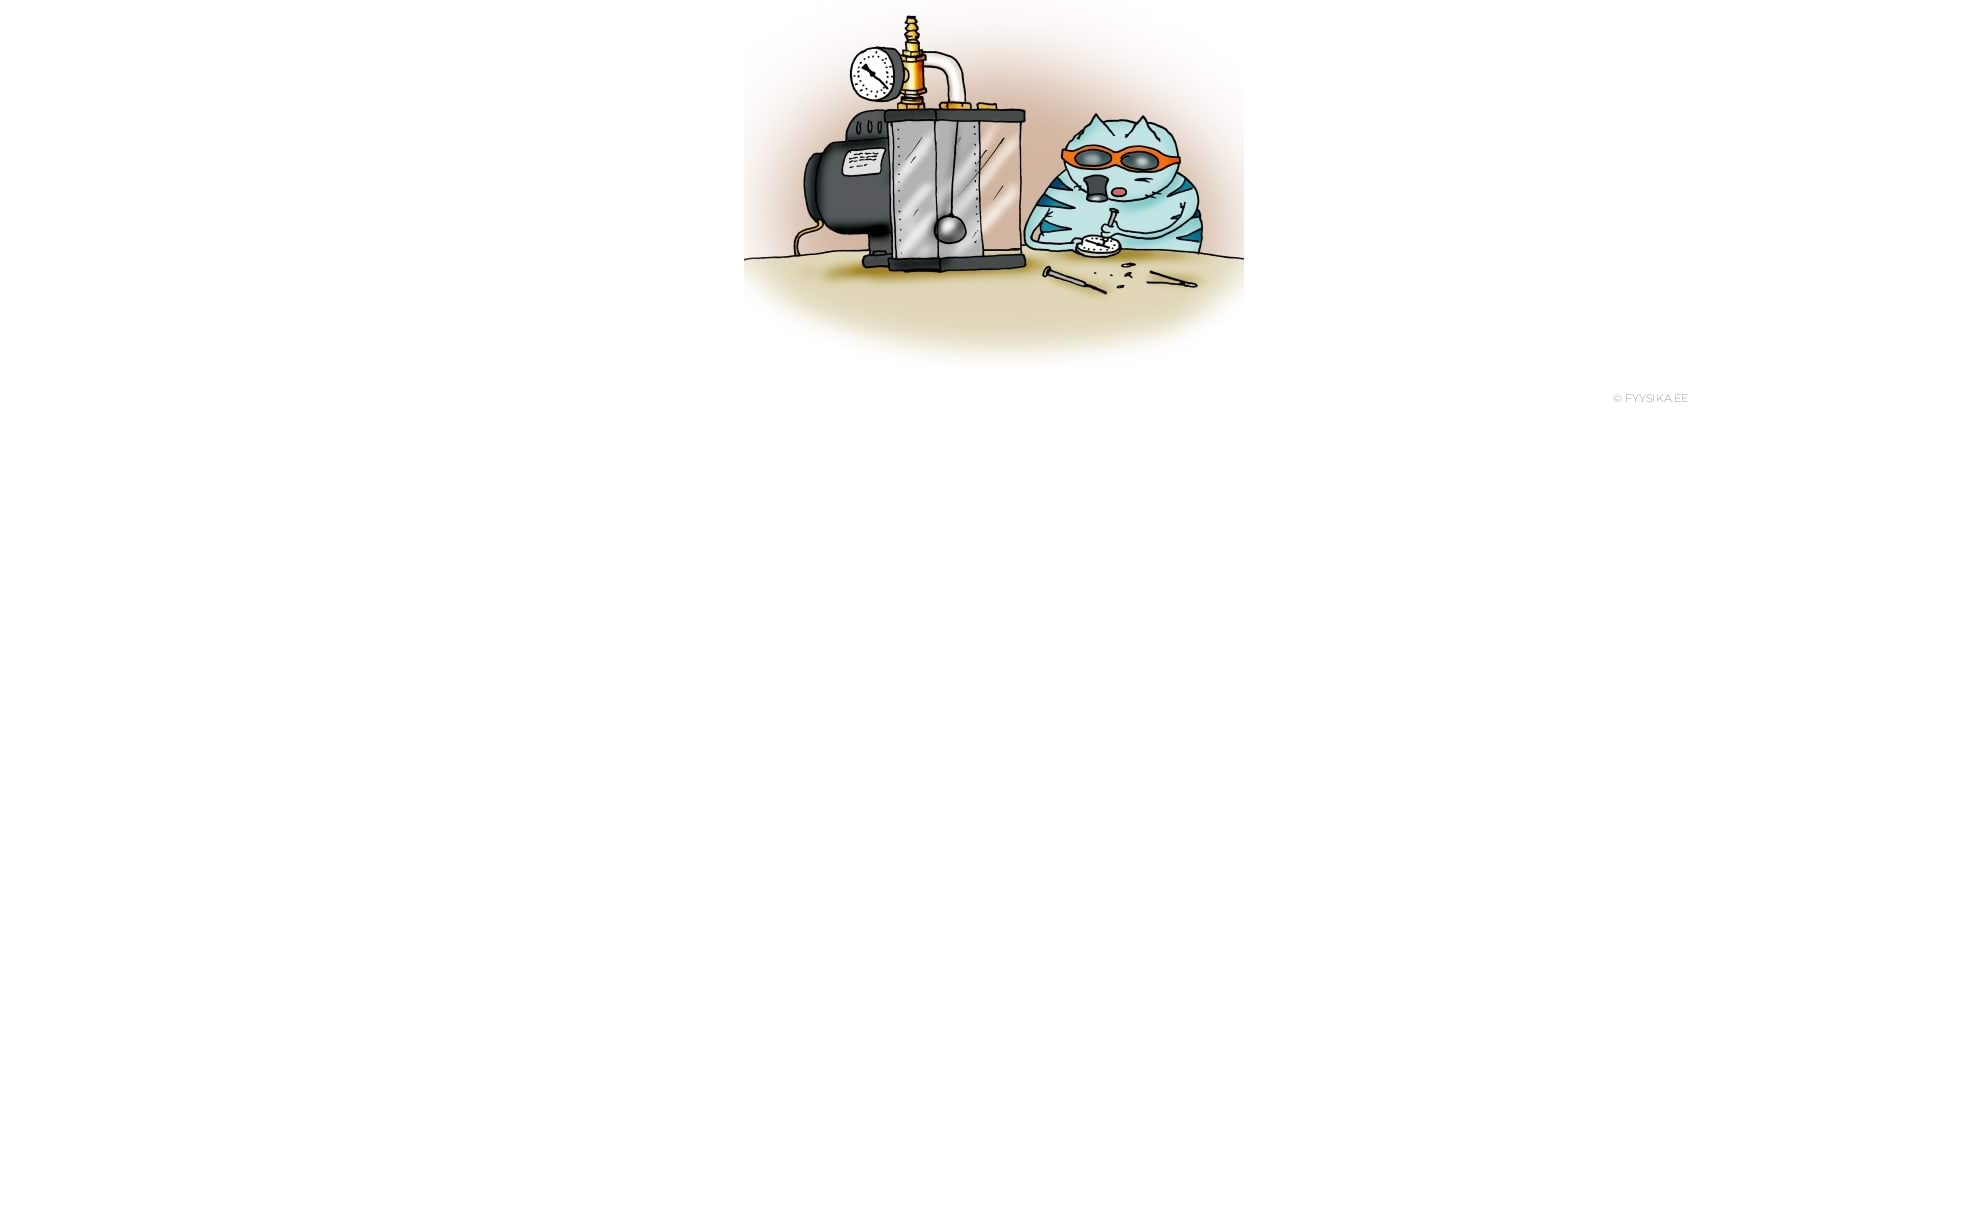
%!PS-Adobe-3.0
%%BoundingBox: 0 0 1987 1220
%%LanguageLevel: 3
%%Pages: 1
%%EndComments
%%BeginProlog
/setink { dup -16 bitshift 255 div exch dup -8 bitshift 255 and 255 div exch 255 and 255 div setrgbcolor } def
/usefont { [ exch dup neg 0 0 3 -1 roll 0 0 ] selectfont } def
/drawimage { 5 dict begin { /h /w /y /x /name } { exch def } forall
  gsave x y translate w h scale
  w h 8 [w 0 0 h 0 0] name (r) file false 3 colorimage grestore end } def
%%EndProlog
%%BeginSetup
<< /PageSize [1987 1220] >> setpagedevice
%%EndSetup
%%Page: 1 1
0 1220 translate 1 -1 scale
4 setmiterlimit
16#FFFFFF setink
0 0 1987 1220 rectfill
(img1.raw) 744 0 500 368 drawimage
/Montserrat-Regular 11 usefont
16#B9B9BA setink
1613 402 moveto (© FYYSIKA.EE) show
showpage
%%EOF
